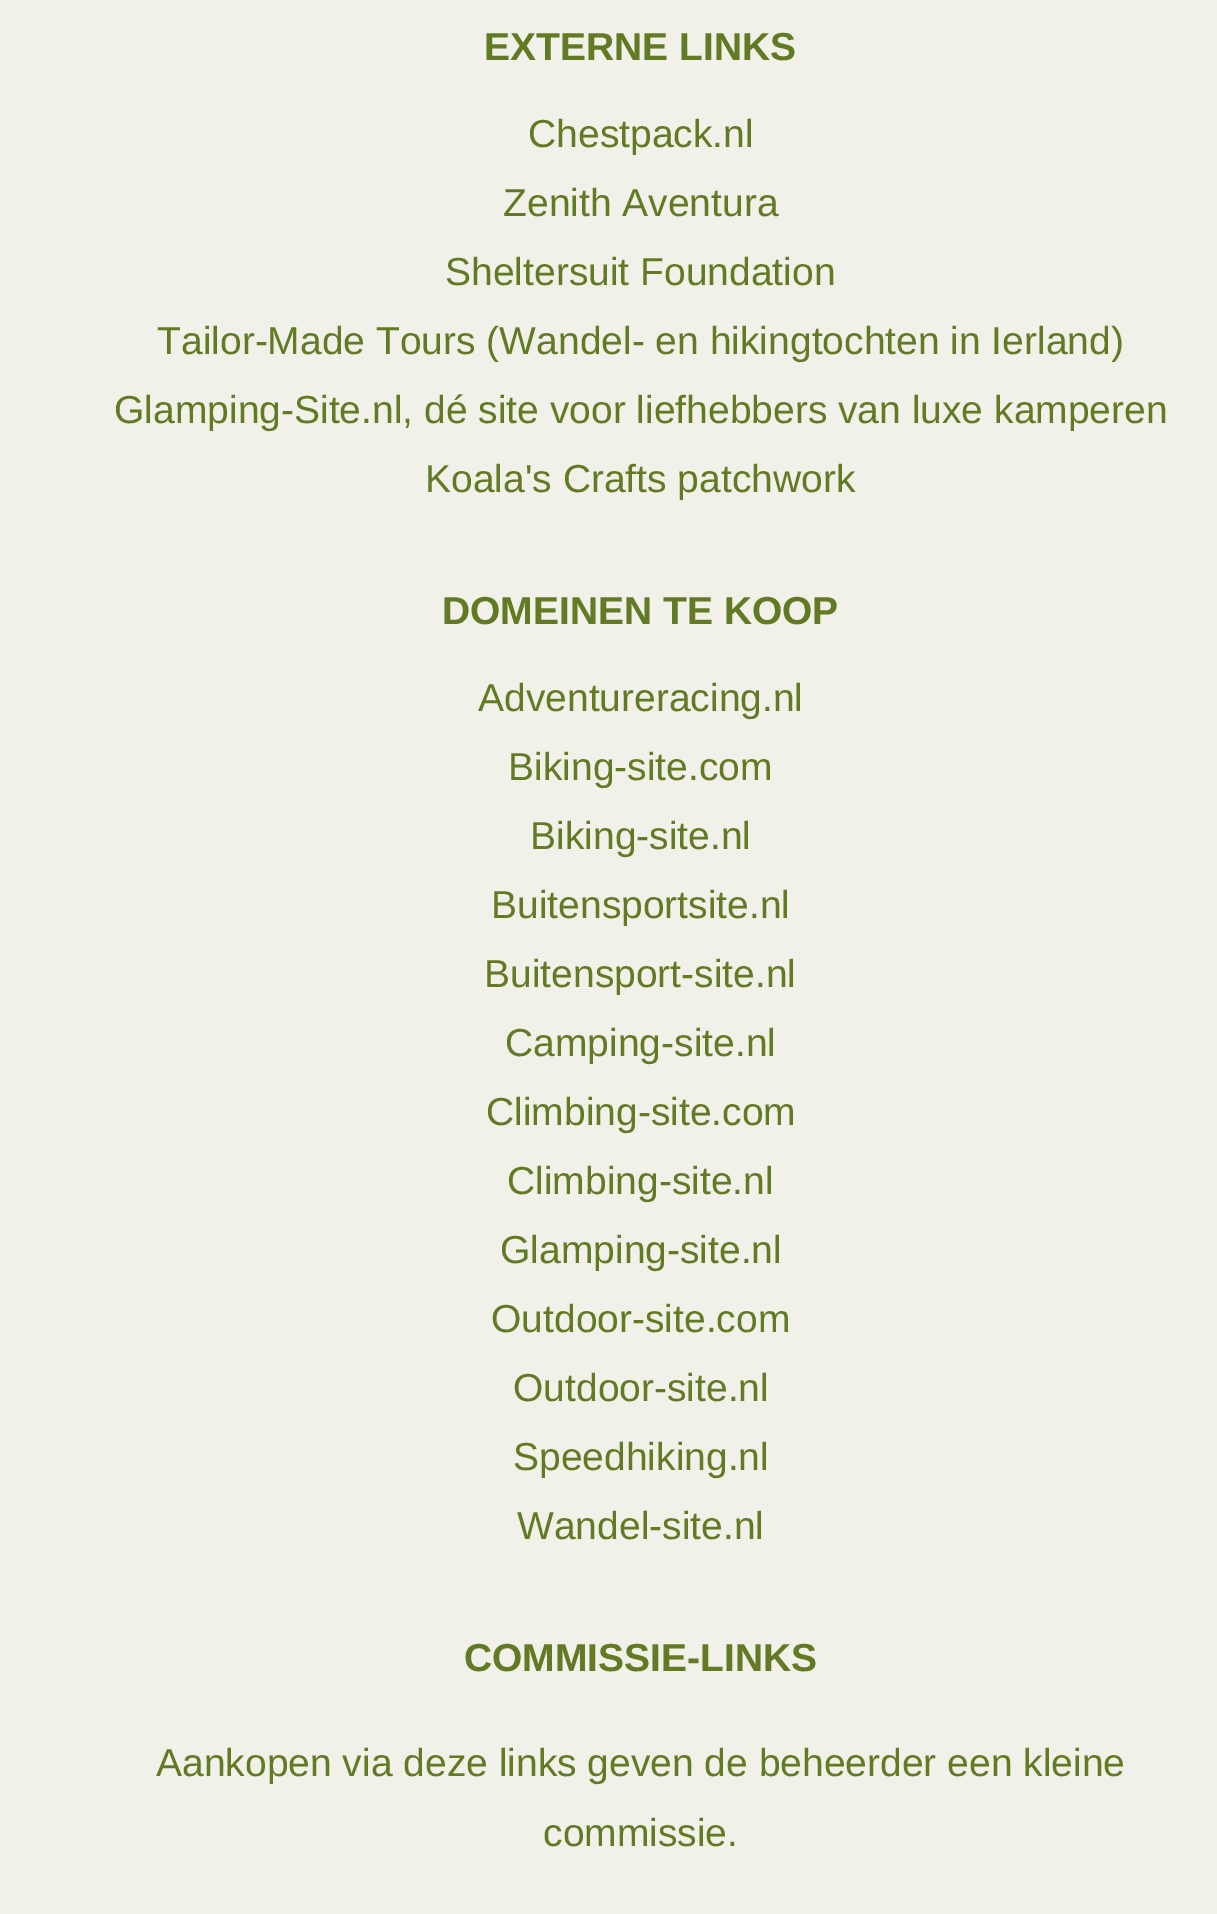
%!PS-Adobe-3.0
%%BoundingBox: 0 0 1217 1914
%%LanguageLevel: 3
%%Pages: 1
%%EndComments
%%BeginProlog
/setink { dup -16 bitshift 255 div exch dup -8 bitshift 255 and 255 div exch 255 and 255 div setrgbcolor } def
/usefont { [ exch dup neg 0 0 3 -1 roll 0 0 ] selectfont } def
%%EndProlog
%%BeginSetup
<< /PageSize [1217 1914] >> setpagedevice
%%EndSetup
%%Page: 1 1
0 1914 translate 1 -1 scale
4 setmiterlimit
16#F1F1E9 setink
0 0 1217 1914 rectfill
/LiberationSans-Bold 39 usefont
16#637A24 setink
484 60 moveto (EXTERNE LINKS) show
/LiberationSans-Regular 39 usefont
[
    [(Chestpack.nl) 528 147]
    [(Zenith Aventura) 503 216]
    [(Sheltersuit Foundation) 445 285]
    [(Tailor-Made Tours \(Wandel- en hikingtochten in Ierland\)) 157 354]
    [(Glamping-Site.nl, dé site voor liefhebbers van luxe kamperen) 114 423]
    [(Koala's Crafts patchwork) 425 492]
] { aload pop moveto show } forall
/LiberationSans-Bold 39 usefont
442 624 moveto (DOMEINEN TE KOOP) show
/LiberationSans-Regular 39 usefont
[
    [(Adventureracing.nl) 478 711]
    [(Biking-site.com) 508 780]
    [(Biking-site.nl) 530 849]
    [(Buitensportsite.nl) 491 918]
    [(Buitensport-site.nl) 484 987]
    [(Camping-site.nl) 505 1056]
    [(Climbing-site.com) 486 1125]
    [(Climbing-site.nl) 507 1194]
    [(Glamping-site.nl) 500 1263]
    [(Outdoor-site.com) 491 1332]
    [(Outdoor-site.nl) 513 1401]
    [(Speedhiking.nl) 513 1470]
    [(Wandel-site.nl) 517 1539]
] { aload pop moveto show } forall
/LiberationSans-Bold 39 usefont
464 1671 moveto (COMMISSIE-LINKS) show
/LiberationSans-Regular 39 usefont
156 1776 moveto (Aankopen via deze links geven de beheerder een kleine) show
543 1846 moveto (commissie.) show
showpage
%%EOF
